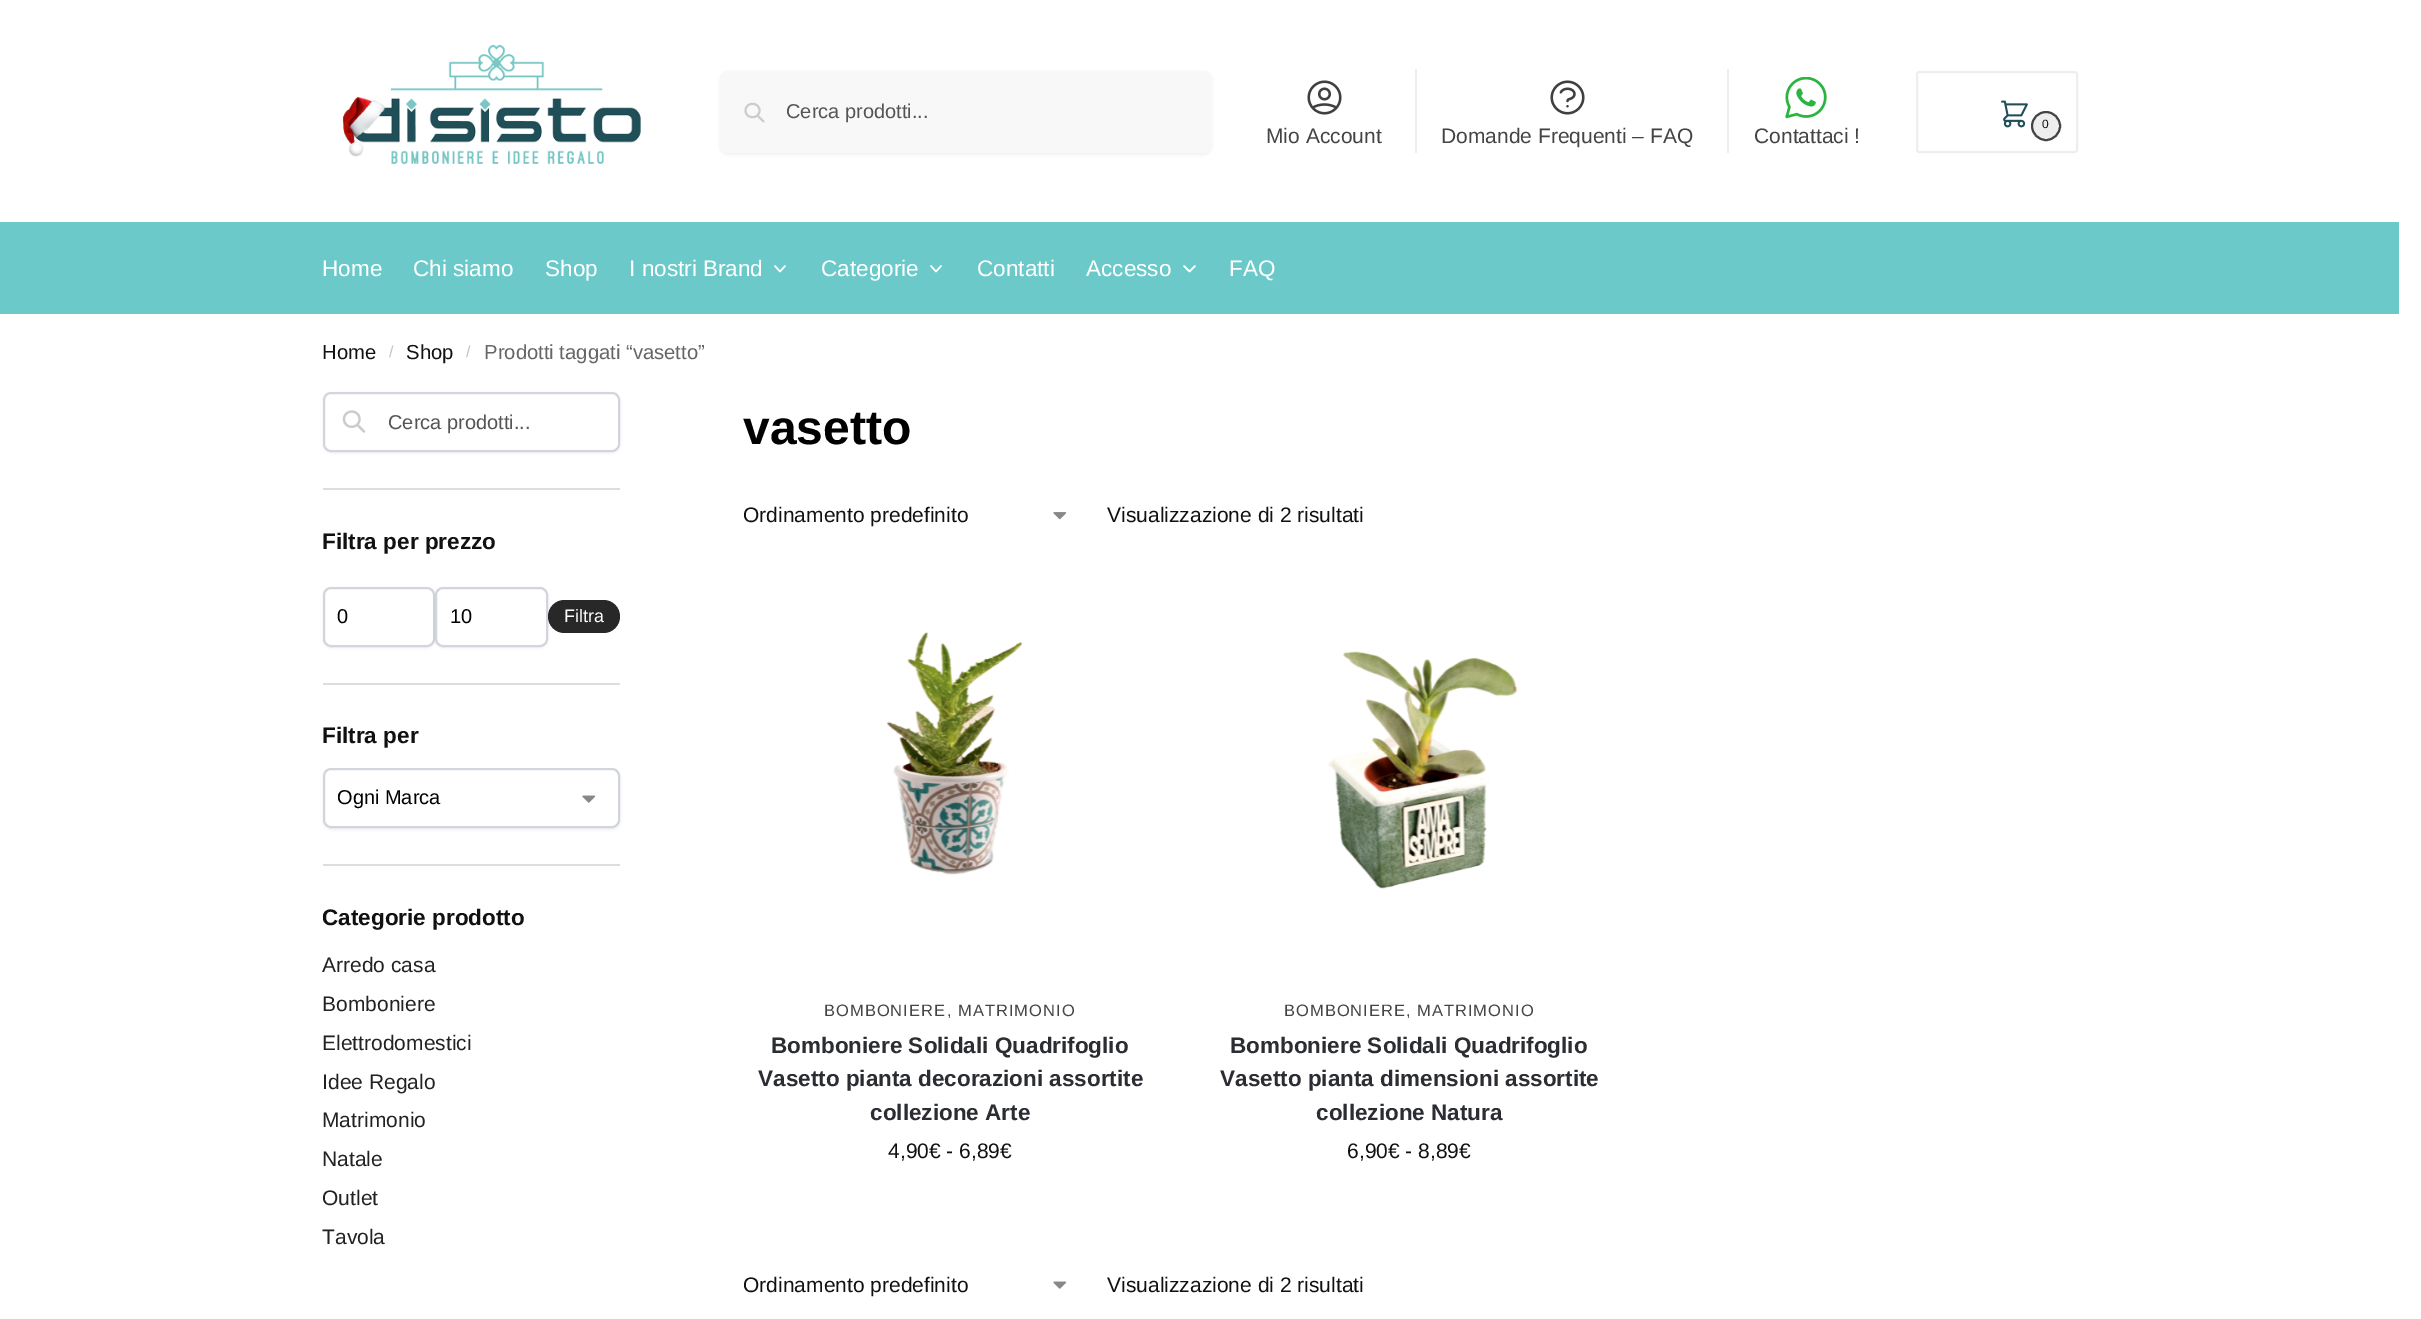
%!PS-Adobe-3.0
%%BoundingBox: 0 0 2421 1319
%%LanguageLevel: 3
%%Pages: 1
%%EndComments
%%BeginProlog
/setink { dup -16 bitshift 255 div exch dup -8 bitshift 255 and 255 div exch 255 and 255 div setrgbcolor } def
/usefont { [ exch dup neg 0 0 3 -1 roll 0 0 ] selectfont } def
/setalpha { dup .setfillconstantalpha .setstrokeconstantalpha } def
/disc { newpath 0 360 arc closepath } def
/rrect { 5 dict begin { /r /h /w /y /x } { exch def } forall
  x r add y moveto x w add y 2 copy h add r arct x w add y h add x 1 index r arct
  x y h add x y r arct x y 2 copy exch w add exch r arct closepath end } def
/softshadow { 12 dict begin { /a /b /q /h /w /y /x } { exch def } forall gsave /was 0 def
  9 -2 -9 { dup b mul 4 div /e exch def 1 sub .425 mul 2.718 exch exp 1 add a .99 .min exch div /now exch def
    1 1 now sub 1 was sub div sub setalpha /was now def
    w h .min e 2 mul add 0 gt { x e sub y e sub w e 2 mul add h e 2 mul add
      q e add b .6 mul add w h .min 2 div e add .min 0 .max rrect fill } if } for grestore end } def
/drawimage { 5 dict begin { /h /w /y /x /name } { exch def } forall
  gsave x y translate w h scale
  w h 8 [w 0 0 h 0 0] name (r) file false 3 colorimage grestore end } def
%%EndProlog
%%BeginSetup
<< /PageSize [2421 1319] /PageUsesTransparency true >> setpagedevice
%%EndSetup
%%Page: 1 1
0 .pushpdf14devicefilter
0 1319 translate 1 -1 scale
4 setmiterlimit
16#FFFFFF setink
0 0 2421 1319 rectfill
(img1.raw) 342 45 299 119 drawimage
16#000000 setink
720 72 492 83 8 1.5 0.05 softshadow
16#F8F8F8 setink
720 71 492 82 8 rrect fill
16#CCCCCC setink
2 setlinewidth
1 setlinecap
1 setlinejoin
763.5 121.5 moveto 757.5 115.5 lineto 759.5 110.5 moveto 759.5 119.5 745.5 119.5 745.5 110.5 curveto 745.5 101.5 759.5 101.5 759.5 110.5 curveto closepath stroke
/LiberationSans-Regular 20 usefont
16#555555 setink
786 118 moveto (Cerca prodotti...) show
16#EEEEEE setink
0 setlinecap
0 setlinejoin
1917 72 160 80 2 rrect stroke
(img2.raw) 2001 100 27 28 drawimage
2046 126 14 disc gsave fill grestore
16#444444 setink
stroke
/LiberationSans-Regular 12 usefont
16#111111 setink
2042 128 moveto (0) show
(img3.raw) 1307 80 35 35 drawimage
/LiberationSans-Regular 21 usefont
16#444444 setink
1266 143 moveto (Mio Account) show
16#EEEEEE setink
1415 69 2 84 rectfill
(img4.raw) 1550 80 35 35 drawimage
16#444444 setink
1441 143 moveto (Domande Frequenti – FAQ) show
16#EEEEEE setink
1727 69 2 84 rectfill
(img5.raw) 1785 77 42 42 drawimage
16#444444 setink
1754 143 moveto (Contattaci !) show
16#6CC9C9 setink
0 222 2399 92 rectfill
/LiberationSans-Regular 22.5 usefont
16#FFFFFF setink
[
    [(Home) 322 276]
    [(Chi siamo) 413 276]
    [(Shop) 545 276]
    [(I nostri Brand) 629 276]
] { aload pop moveto show } forall
1.5 setlinewidth
1 setlinecap
1 setlinejoin
785 266 moveto 780 271.5 lineto 775 266 lineto stroke
821 276 moveto (Categorie) show
941 266 moveto 936 271.5 lineto 931 266 lineto stroke
977 276 moveto (Contatti) show
1086 276 moveto (Accesso) show
1195 266 moveto 1189.5 271.5 lineto 1184 266 lineto stroke
1229 276 moveto (FAQ) show
/LiberationSans-Regular 20.25 usefont
16#111111 setink
322 359 moveto (Home) show
/LiberationSans-Regular 16 usefont
16#C2C2C2 setink
389 357 moveto (/) show
/LiberationSans-Regular 20.25 usefont
16#111111 setink
406 359 moveto (Shop) show
/LiberationSans-Regular 16 usefont
16#C2C2C2 setink
466 357 moveto (/) show
/LiberationSans-Regular 20.25 usefont
16#666666 setink
484 359 moveto (Prodotti taggati “vasetto”) show
16#DDDDDD setink
323 488 297 2 rectfill
16#000000 setink
323 393 297 60 8 1.5 0.05 softshadow
16#FFFFFF setink
324 393 295 58 7 rrect gsave fill grestore
16#D2D6DC setink
2 setlinewidth
0 setlinecap
0 setlinejoin
stroke
16#CCCCCC setink
2.2 setlinewidth
1 setlinecap
1 setlinejoin
364 431.5 moveto 357.5 425 lineto 359.5 419 moveto 359.5 429.5 344 429.5 344 419 curveto 344 409 359.5 409 359.5 419 curveto closepath stroke
gsave
389 411 210 23 rectclip
/LiberationSans-Regular 20 usefont
16#555555 setink
388 429 moveto (Cerca prodotti...) show
grestore
16#DDDDDD setink
323 683 297 2 rectfill
/LiberationSans-Bold 22.5 usefont
16#111111 setink
322 549 moveto (Filtra per prezzo) show
16#000000 setink
323 588 112 60 8 1.5 0.05 softshadow
16#FFFFFF setink
324 588 110 58 7 rrect gsave fill grestore
16#D2D6DC setink
2 setlinewidth
0 setlinecap
0 setlinejoin
stroke
/LiberationSans-Regular 20 usefont
16#000000 setink
337 623 moveto (0) show
435 588 113 60 8 1.5 0.05 softshadow
16#FFFFFF setink
436 588 111 58 7 rrect gsave fill grestore
16#D2D6DC setink
stroke
16#000000 setink
450 623 moveto (10) show
16#282828 setink
548 600 72 33 16.5 rrect fill
/LiberationSans-Regular 18 usefont
16#FFFFFF setink
564 622 moveto (Filtra) show
16#DDDDDD setink
323 864 297 2 rectfill
/LiberationSans-Bold 22.5 usefont
16#111111 setink
322 743 moveto (Filtra per) show
gsave
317 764 moveto 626 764 lineto 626 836 lineto 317 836 lineto closepath 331 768 moveto 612 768 lineto 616.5 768 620 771.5 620 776 curveto 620 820 lineto 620 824.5 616.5 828 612 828 curveto 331 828 lineto 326.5 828 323 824.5 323 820 curveto 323 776 lineto 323 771.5 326.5 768 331 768 curveto closepath eoclip newpath
16#000000 setink
323 770 297 60 8 1.5 0.05 softshadow
grestore
(img6.raw) 582 795 14 8 drawimage
16#D2D6DC setink
324 769 295 58 7 rrect stroke
/LiberationSans-Regular 20 usefont
16#000000 setink
337 804 moveto (Ogni Marca) show
/LiberationSans-Bold 22.5 usefont
16#111111 setink
322 925 moveto (Categorie prodotto) show
/LiberationSans-Regular 21 usefont
16#222222 setink
[
    [(Arredo casa) 322 972]
    [(Bomboniere) 322 1011]
    [(Elettrodomestici) 322 1050]
    [(Idee Regalo) 322 1089]
    [(Matrimonio) 322 1127]
    [(Natale) 322 1166]
    [(Outlet) 322 1205]
    [(Tavola) 322 1244]
] { aload pop moveto show } forall
/LiberationSans-Bold 48 usefont
16#000000 setink
743 444 moveto (vasetto) show
(img7.raw) 1053 512 14 8 drawimage
/LiberationSans-Regular 21 usefont
16#111111 setink
743 522 moveto (Ordinamento predefinito) show
1107 522 moveto (Visualizzazione di 2 risultati) show
(img8.raw) 886 632 137 243 drawimage
/LiberationSans-Regular 16.5 usefont
16#444444 setink
824 1016 moveto 1 0 (BOMBONIERE) ashow
947 1016 moveto 1 0 (, MATRIMONIO) ashow
/LiberationSans-Bold 22.5 usefont
16#2C2D33 setink
[
    [(Bomboniere Solidali Quadrifoglio) 771 1053]
    [(Vasetto pianta decorazioni assortite) 758 1086]
    [(collezione Arte) 870 1120]
] { aload pop moveto show } forall
/LiberationSans-Regular 21 usefont
16#111111 setink
888 1158 moveto (4,90€ - 6,89€) show
(img9.raw) 1328 651 190 238 drawimage
/LiberationSans-Regular 16.5 usefont
16#444444 setink
1284 1016 moveto 1 0 (BOMBONIERE) ashow
1406 1016 moveto 1 0 (, MATRIMONIO) ashow
/LiberationSans-Bold 22.5 usefont
16#2C2D33 setink
[
    [(Bomboniere Solidali Quadrifoglio) 1230 1053]
    [(Vasetto pianta dimensioni assortite) 1220 1086]
    [(collezione Natura) 1316 1120]
] { aload pop moveto show } forall
/LiberationSans-Regular 21 usefont
16#111111 setink
1347 1158 moveto (6,90€ - 8,89€) show
(img6.raw) 1053 1281 14 8 drawimage
743 1292 moveto (Ordinamento predefinito) show
1107 1292 moveto (Visualizzazione di 2 risultati) show
.poppdf14devicefilter showpage
%%EOF
